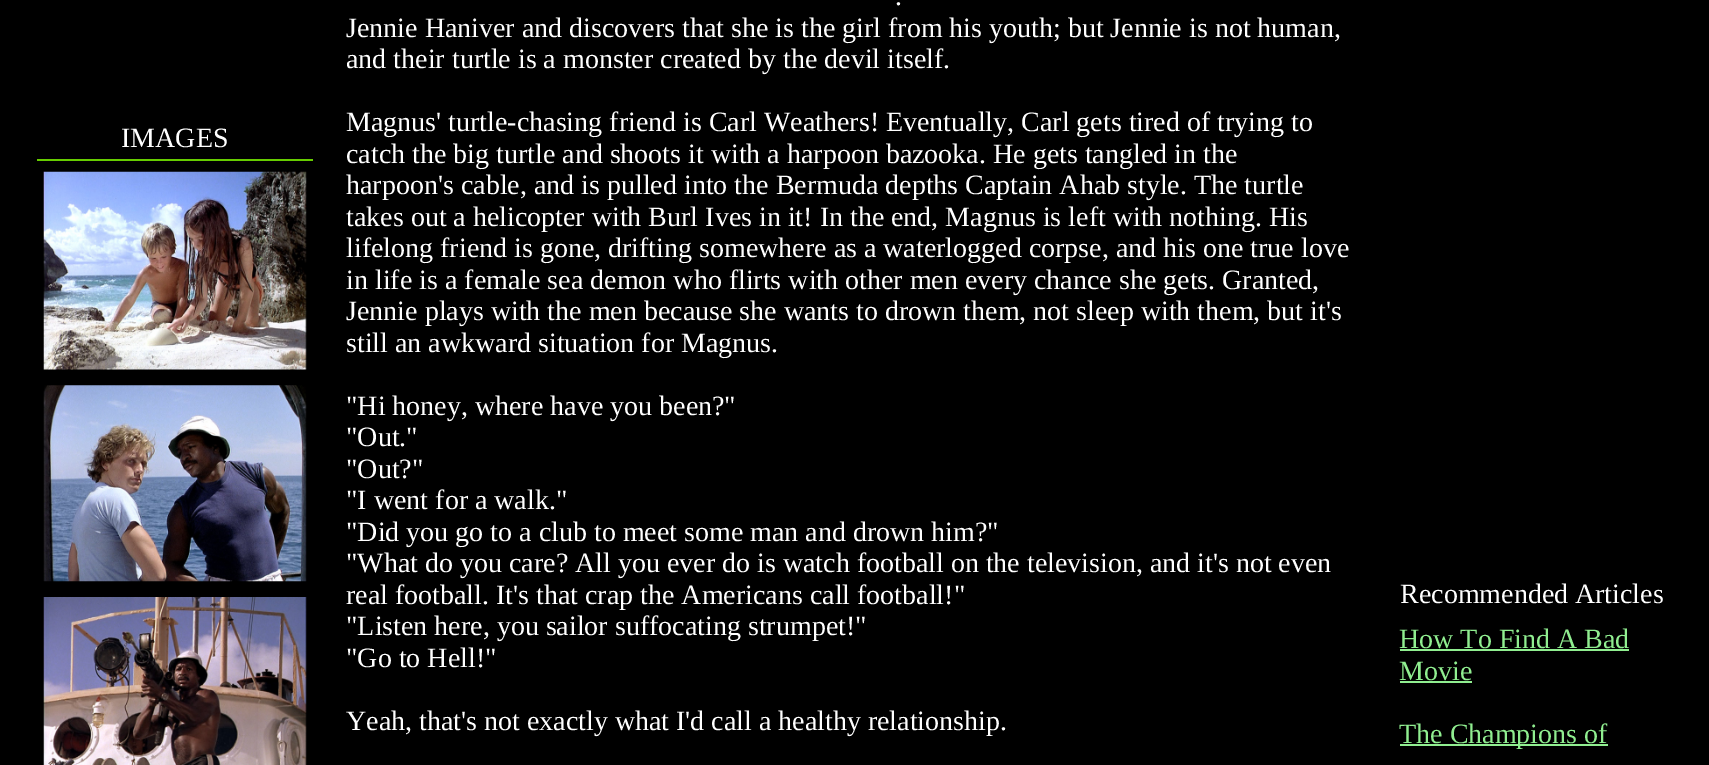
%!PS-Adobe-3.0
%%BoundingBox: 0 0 1709 765
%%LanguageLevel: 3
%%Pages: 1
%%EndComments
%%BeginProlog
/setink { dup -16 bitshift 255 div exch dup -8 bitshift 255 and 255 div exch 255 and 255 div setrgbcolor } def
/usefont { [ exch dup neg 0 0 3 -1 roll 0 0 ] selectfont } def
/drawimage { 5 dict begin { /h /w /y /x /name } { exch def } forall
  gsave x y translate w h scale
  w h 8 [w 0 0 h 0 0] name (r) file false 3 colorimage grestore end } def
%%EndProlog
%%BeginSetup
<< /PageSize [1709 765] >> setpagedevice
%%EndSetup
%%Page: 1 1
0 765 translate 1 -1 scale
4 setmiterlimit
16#000000 setink
0 0 1709 765 rectfill
16#66CC00 setink
37 159 276 2 rectfill
/LiberationSerif-Regular 28 usefont
16#FFFFFF setink
121 147 moveto (IMAGES) show
(img1.raw) 43 171 264 199 drawimage
(img2.raw) 43 385 264 197 drawimage
(img3.raw) 43 597 264 168 drawimage
[
    [(.) 895 5]
    [(Jennie Haniver and discovers that she is the girl from his youth; but Jennie is not human,) 346 37]
    [(and their turtle is a monster created by the devil itself.) 346 68]
    [(Magnus' turtle-chasing friend is Carl Weathers! Eventually, Carl gets tired of trying to) 346 131]
    [(catch the big turtle and shoots it with a harpoon bazooka. He gets tangled in the) 346 163]
    [(harpoon's cable, and is pulled into the Bermuda depths Captain Ahab style. The turtle) 346 194]
    [(takes out a helicopter with Burl Ives in it! In the end, Magnus is left with nothing. His) 346 226]
    [(lifelong friend is gone, drifting somewhere as a waterlogged corpse, and his one true love) 346 257]
    [(in life is a female sea demon who flirts with other men every chance she gets. Granted,) 346 289]
    [(Jennie plays with the men because she wants to drown them, not sleep with them, but it's) 346 320]
    [(still an awkward situation for Magnus.) 346 352]
    [("Hi honey, where have you been?") 346 415]
    [("Out.") 346 446]
    [("Out?") 346 478]
    [("I went for a walk.") 346 509]
    [("Did you go to a club to meet some man and drown him?") 346 541]
    [("What do you care? All you ever do is watch football on the television, and it's not even) 346 572]
    [(real football. It's that crap the Americans call football!") 346 604]
    [("Listen here, you sailor suffocating strumpet!") 346 635]
    [("Go to Hell!") 346 667]
    [(Yeah, that's not exactly what I'd call a healthy relationship.) 346 730]
    [(Recommended Articles) 1400 603]
] { aload pop moveto show } forall
16#90EE90 setink
1399 648 moveto (How To Find A Bad) show
1400 649 229 2 rectfill
1399 680 moveto (Movie) show
1400 681 72 2 rectfill
1400 744 208 2 rectfill
1399 743 moveto (The Champions of) show
showpage
%%EOF
